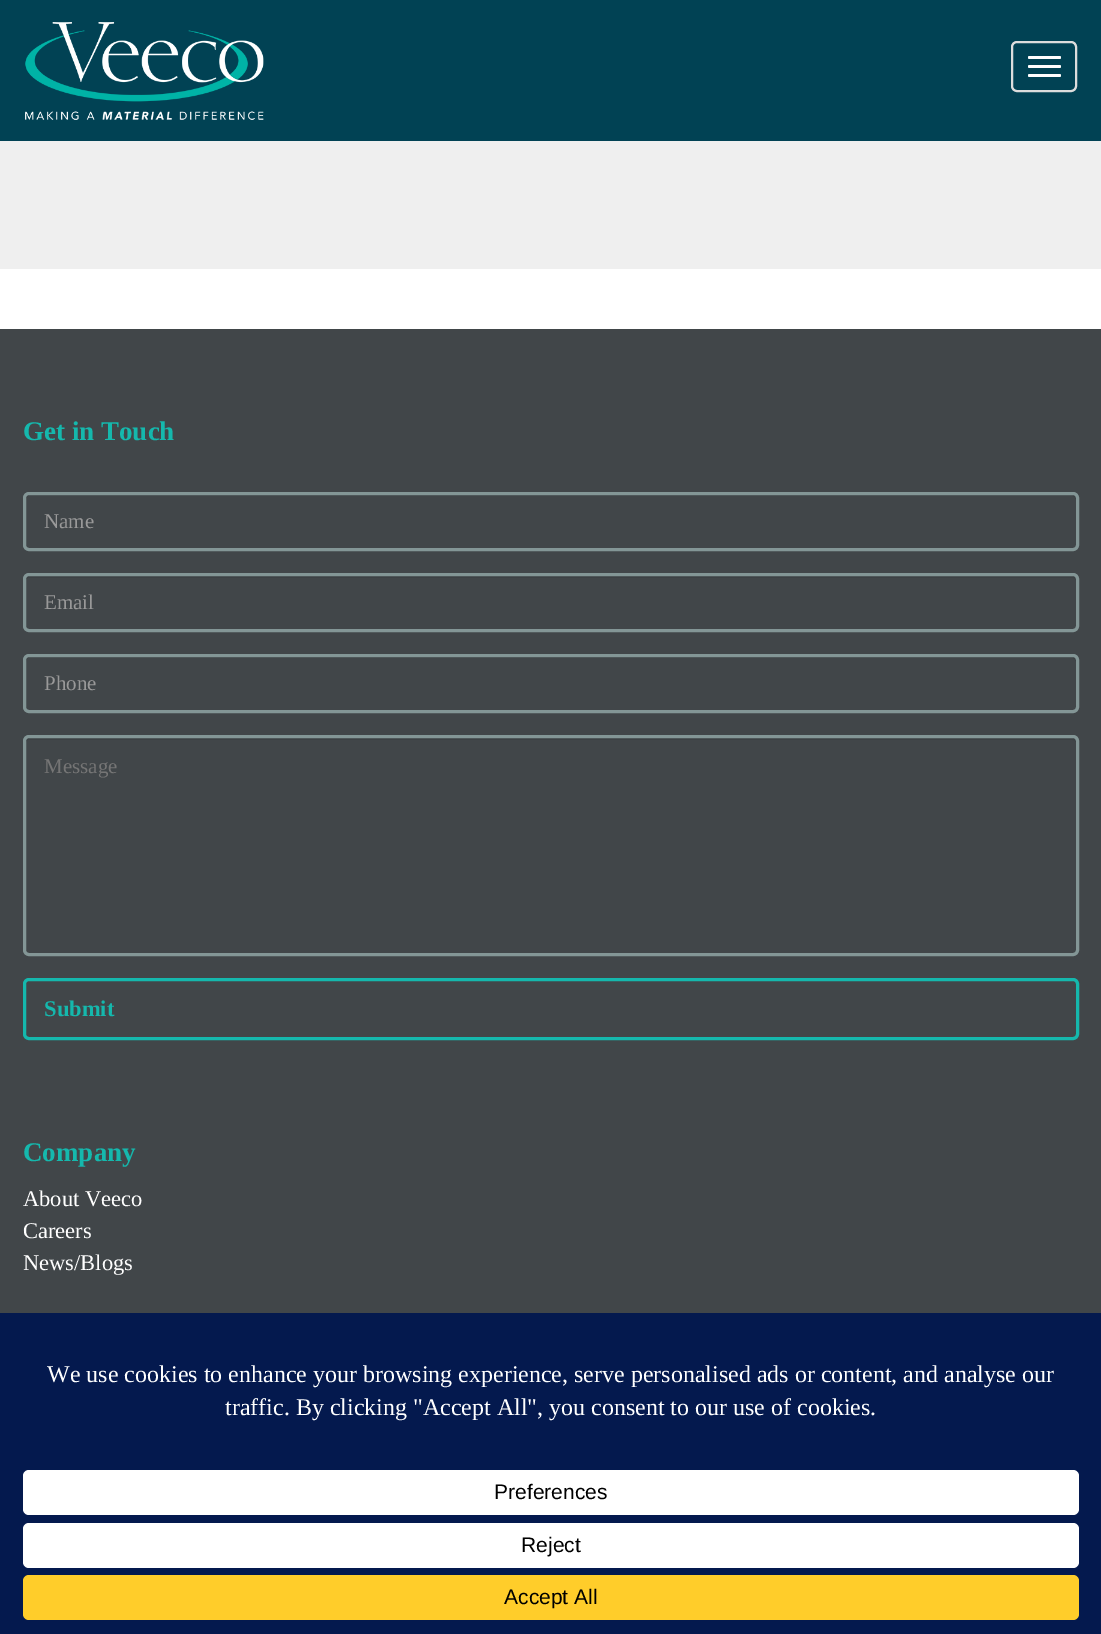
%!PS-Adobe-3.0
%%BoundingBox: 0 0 1101 1634
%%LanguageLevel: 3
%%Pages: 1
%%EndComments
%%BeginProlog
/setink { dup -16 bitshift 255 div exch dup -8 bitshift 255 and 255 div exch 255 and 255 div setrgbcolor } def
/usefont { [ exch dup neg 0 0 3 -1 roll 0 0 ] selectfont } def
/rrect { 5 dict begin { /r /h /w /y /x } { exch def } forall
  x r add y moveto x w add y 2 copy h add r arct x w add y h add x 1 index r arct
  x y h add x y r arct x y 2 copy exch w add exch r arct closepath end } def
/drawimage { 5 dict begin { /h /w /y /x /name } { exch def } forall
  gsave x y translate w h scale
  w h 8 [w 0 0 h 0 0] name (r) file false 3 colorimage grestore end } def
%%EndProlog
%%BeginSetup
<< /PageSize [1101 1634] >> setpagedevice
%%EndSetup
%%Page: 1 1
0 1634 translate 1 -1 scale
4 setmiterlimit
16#FFFFFF setink
0 0 1101 1634 rectfill
16#014254 setink
0 0 1101 141 rectfill
(img1.raw) 25 22 239 98 drawimage
16#DDDDDD setink
2 setlinewidth
1012 42 64 49 5 rrect stroke
16#FFFFFF setink
1028 56 33 3 1.5 rrect fill
1028 65 33 3 1.5 rrect fill
1028 74 33 3 1.5 rrect fill
16#EFEFEF setink
0 141 1101 128 rectfill
16#414649 setink
0 329 1101 984 rectfill
/LiberationSerif-Bold 27 usefont
16#15B8AD setink
23 440 moveto (Get in Touch) show
16#3C4144 setink
28 496 moveto 1072 496 lineto 1074 496 1076 498 1076 500 curveto 1076 498 lineto 1076 496 1075 495 1073 495 curveto 29 495 lineto 27 495 26 496 26 498 curveto 26 500 lineto 26 498 27 496 28 496 curveto closepath fill
16#839696 setink
3 setlinewidth
24.5 493.5 1053 56 4.5 rrect stroke
/LiberationSerif-Regular 21 usefont
16#999999 setink
44 528 moveto (Name) show
16#3C4144 setink
28 578 moveto 1072 578 lineto 1074 578 1076 579 1076 580 curveto 1076 578 1075 576 1073 576 curveto 29 576 lineto 27 576 26 578 26 580 curveto 26 579 27 578 28 578 curveto closepath fill
16#839696 setink
24.5 574.5 1053 56 4.5 rrect stroke
16#999999 setink
44 609 moveto (Email) show
16#3C4144 setink
28 658 moveto 1072 658 lineto 1074 658 1076 660 1076 662 curveto 1076 660 lineto 1076 658 1075 657 1073 657 curveto 29 657 lineto 27 657 26 658 26 660 curveto 26 662 lineto 26 660 27 658 28 658 curveto closepath fill
16#839696 setink
24.5 655.5 1053 56 4.5 rrect stroke
16#999999 setink
44 690 moveto (Phone) show
16#3C4144 setink
28 740 moveto 1072 740 lineto 1074 740 1076 741 1076 742 curveto 1076 740 1075 738 1073 738 curveto 29 738 lineto 27 738 26 740 26 742 curveto 26 741 27 740 28 740 curveto closepath fill
16#839696 setink
24.5 736.5 1053 218 4.5 rrect stroke
16#757575 setink
44 773 moveto (Message) show
16#15B8AD setink
24.5 979.5 1053 59 4.5 rrect stroke
/LiberationSerif-Bold 22.5 usefont
44 1016 moveto (Submit) show
/LiberationSerif-Bold 27 usefont
23 1161 moveto (Company) show
/LiberationSerif-Regular 22.5 usefont
16#FFFFFF setink
[
    [(About Veeco) 23 1206]
    [(Careers) 23 1238]
    [(News/Blogs) 23 1270]
] { aload pop moveto show } forall
16#04194E setink
0 1313 1101 321 rectfill
/LiberationSerif-Regular 24 usefont
16#FFFFFF setink
47 1382 moveto (We use cookies to enhance your browsing experience, serve personalised ads or content, and analyse our) show
225 1415 moveto (traffic. By clicking "Accept All", you consent to our use of cookies.) show
23 1470 1056 45 6 rrect fill
/LiberationSans-Regular 21 usefont
16#000000 setink
494 1499 moveto (Preferences) show
16#FFFFFF setink
23 1523 1056 45 6 rrect fill
16#000000 setink
521 1552 moveto (Reject) show
16#FFCD2A setink
23 1575 1056 45 6 rrect fill
16#000000 setink
504 1604 moveto (Accept All) show
showpage
%%EOF
